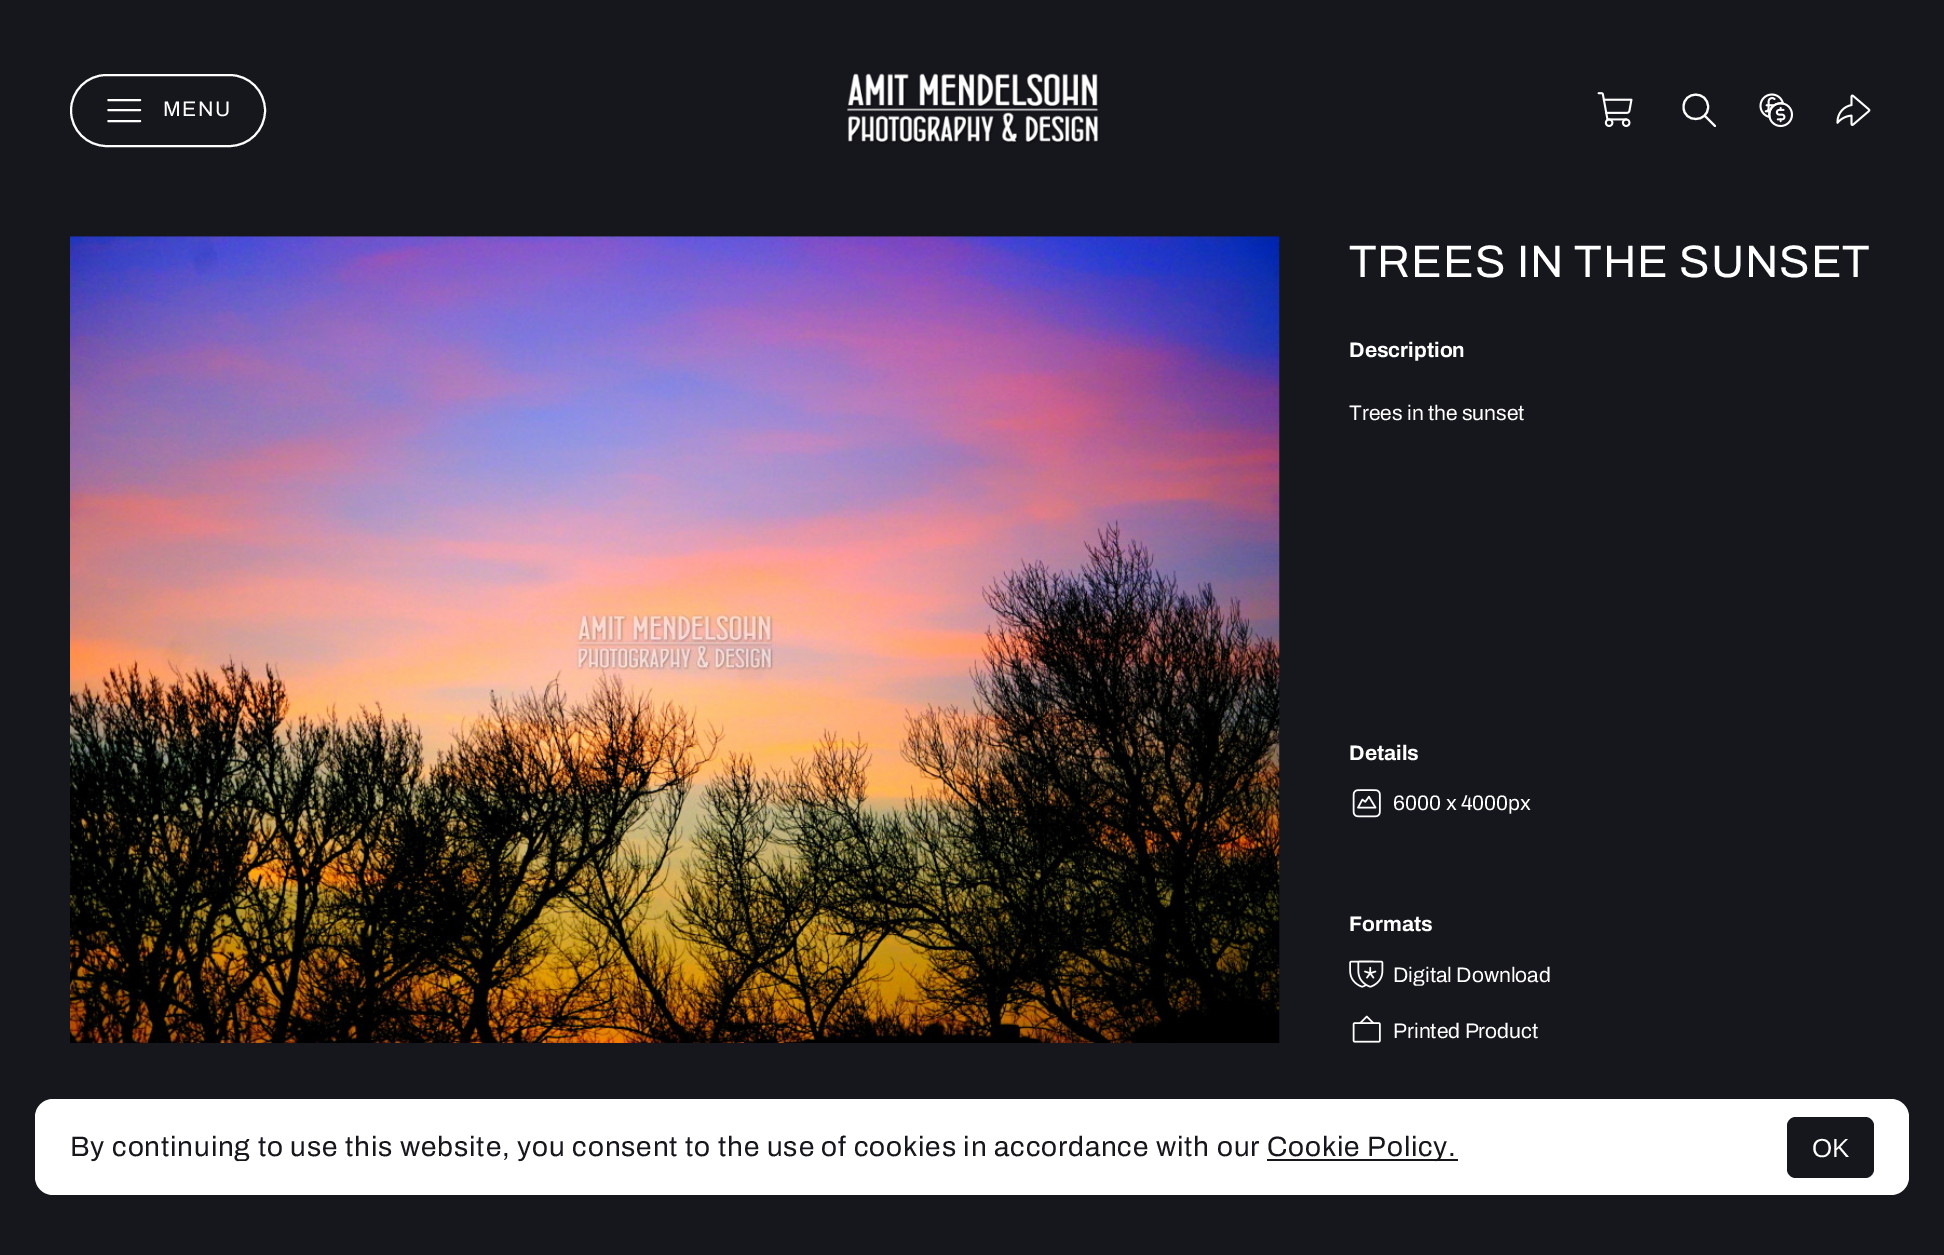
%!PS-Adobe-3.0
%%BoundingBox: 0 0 1944 1255
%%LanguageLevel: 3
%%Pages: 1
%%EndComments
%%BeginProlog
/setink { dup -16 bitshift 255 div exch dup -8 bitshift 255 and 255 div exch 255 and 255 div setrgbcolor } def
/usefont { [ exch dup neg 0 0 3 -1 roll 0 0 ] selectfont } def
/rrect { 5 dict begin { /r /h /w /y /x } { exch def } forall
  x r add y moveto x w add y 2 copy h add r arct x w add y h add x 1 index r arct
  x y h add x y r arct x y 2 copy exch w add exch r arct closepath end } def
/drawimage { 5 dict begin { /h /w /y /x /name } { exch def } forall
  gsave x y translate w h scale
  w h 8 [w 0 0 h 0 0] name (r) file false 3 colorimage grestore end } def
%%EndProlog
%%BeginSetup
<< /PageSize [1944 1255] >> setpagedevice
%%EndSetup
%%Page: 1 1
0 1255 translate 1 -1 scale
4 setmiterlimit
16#16161D setink
0 0 1944 1255 rectfill
16#FFFFFF setink
2 setlinewidth
71 75 194 71 35.5 rrect stroke
2.1 setlinewidth
1 setlinecap
1 setlinejoin
108.5 110 moveto 140 110 lineto 108.5 100 moveto 140 100 lineto 108.5 121 moveto 140 121 lineto stroke
/Archivo-Regular 21 usefont
163 116 moveto 1.5 0 (MENU) ashow
(img1.raw) 847 73 253 71 drawimage
(img2.raw) 1597 92 36 35 drawimage
1715 126 moveto 1704.5 115.5 lineto 1708 107 moveto 1708 123 1683.5 123 1683.5 107 curveto 1683.5 90.5 1708 90.5 1708 107 curveto closepath stroke
(img3.raw) 1759 93 35 35 drawimage
(img4.raw) 1836 94 35 32 drawimage
(img5.raw) 70 236 1210 807 drawimage
/Archivo-Regular 45.5 usefont
1349 277 moveto 0.88 0 (TREES IN THE SUNSET) ashow
/Archivo-Bold 21 usefont
1349 357 moveto (Description) show
/Archivo-Regular 21 usefont
1349 420 moveto (Trees in the sunset) show
/Archivo-Bold 21 usefont
1349 760 moveto (Details) show
(img6.raw) 1352 789 29 29 drawimage
/Archivo-Regular 21 usefont
1393 810 moveto (6000 x 4000px) show
/Archivo-Bold 21 usefont
1349 931 moveto (Formats) show
(img7.raw) 1349 960 35 28 drawimage
/Archivo-Regular 21 usefont
1393 982 moveto (Digital Download) show
(img8.raw) 1352 1015 29 28 drawimage
1393 1038 moveto (Printed Product) show
35 1099 1874 96 18 rrect fill
/Archivo-Regular 28 usefont
16#16161D setink
70 1156 moveto 0.88 0 (By continuing to use this website, you consent to the use of cookies in accordance with our) ashow
1267 1159 191 2 rectfill
1267 1156 moveto 0.88 0 (Cookie Policy.) ashow
1787 1117 87 61 9 rrect fill
/LiberationSans-Regular 26 usefont
16#FFFFFF setink
1812 1157 moveto (OK) show
showpage
%%EOF
